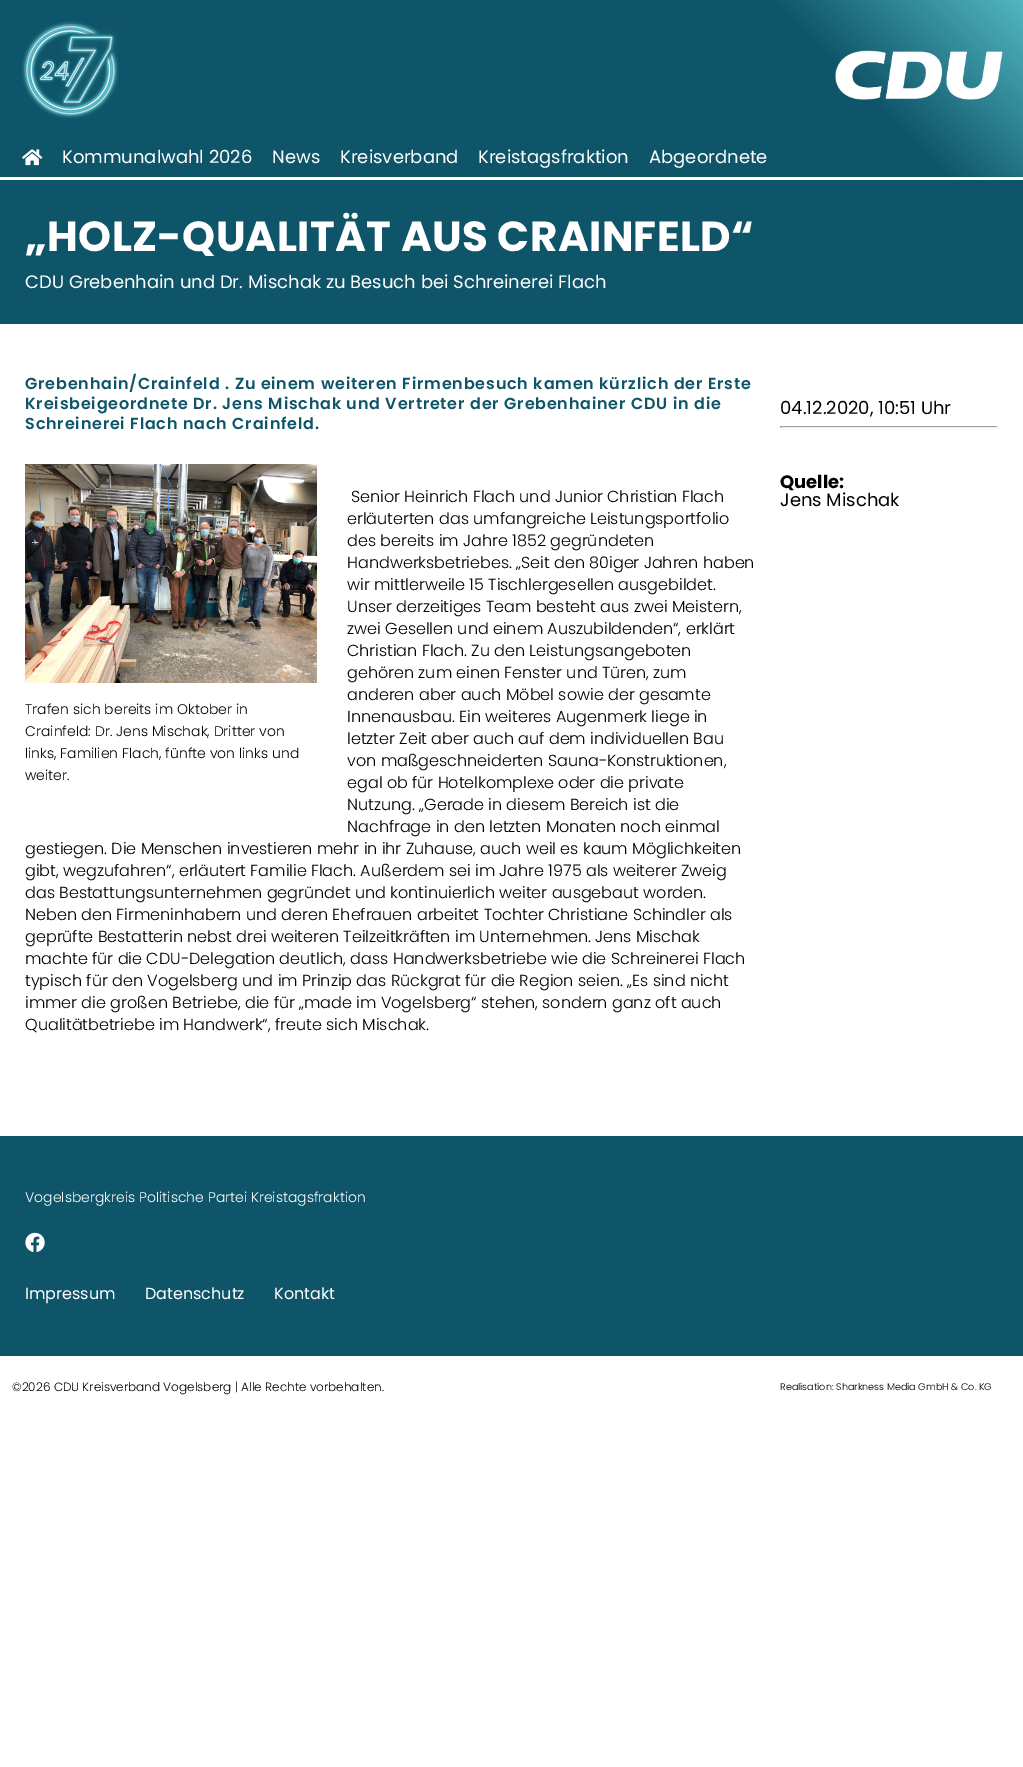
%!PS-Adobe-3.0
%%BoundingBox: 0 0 1023 1767
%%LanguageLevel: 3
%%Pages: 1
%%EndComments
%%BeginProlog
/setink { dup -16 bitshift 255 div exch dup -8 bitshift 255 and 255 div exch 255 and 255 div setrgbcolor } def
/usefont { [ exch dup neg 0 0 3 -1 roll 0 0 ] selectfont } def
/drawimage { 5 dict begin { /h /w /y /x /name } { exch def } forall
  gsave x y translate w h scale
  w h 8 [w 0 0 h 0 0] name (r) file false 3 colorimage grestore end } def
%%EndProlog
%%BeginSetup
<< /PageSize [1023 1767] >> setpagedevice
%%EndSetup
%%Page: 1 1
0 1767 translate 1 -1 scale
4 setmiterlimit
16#FFFFFF setink
0 0 1023 1767 rectfill
gsave 0 0 moveto 1023 0 lineto 1023 177 lineto 0 177 lineto closepath clip newpath
<< /ShadingType 2 /ColorSpace /DeviceRGB /Coords [212 389 812 -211] /Extend [true true] /Function << /FunctionType 3 /Domain [0 1] /Functions [<< /FunctionType 2 /Domain [0 1] /C0 [0.059 0.333 0.412] /C1 [0.059 0.333 0.412] /N 1 >> << /FunctionType 2 /Domain [0 1] /C0 [0.059 0.333 0.412] /C1 [0.322 0.718 0.757] /N 1 >>] /Bounds [0.79] /Encode [0 1 0 1] >> >> shfill grestore
(img1.raw) 22 21 97 98 drawimage
(img2.raw) 835 50 168 50 drawimage
(img3.raw) 22 149 21 17 drawimage
/Poppins-Regular 18 usefont
[
    [(Kommunalwahl 2026) 62 163]
    [(News) 272 163]
    [(Kreisverband) 340 163]
    [(Kreistagsfraktion) 478 163]
    [(Abgeordnete) 649 163]
] { aload pop moveto show } forall
16#0F5569 setink
0 180 1023 144 rectfill
/Poppins-Bold 42 usefont
16#FFFFFF setink
25 251 moveto 0.35 0 („HOLZ-QUALITÄT AUS CRAINFELD“) ashow
/Poppins-Regular 18 usefont
25 288 moveto (CDU Grebenhain und Dr. Mischak zu Besuch bei Schreinerei Flach) show
/Poppins-SemiBold 16 usefont
16#0F5569 setink
25 389 moveto 0.8 0 (Grebenhain/Crainfeld . Zu einem weiteren Firmenbesuch kamen kürzlich der Erste) ashow
25 409 moveto 0.8 0 (Kreisbeigeordnete Dr. Jens Mischak und Vertreter der Grebenhainer CDU in die) ashow
25 429 moveto 0.8 0 (Schreinerei Flach nach Crainfeld.) ashow
/Poppins-Light 16 usefont
16#000000 setink
[
    [(Senior Heinrich Flach und Junior Christian Flach) 351 502]
    [(erläuterten das umfangreiche Leistungsportfolio) 347 524]
    [(des bereits im Jahre 1852 gegründeten) 347 546]
    [(Handwerksbetriebes. „Seit den 80iger Jahren haben) 347 568]
    [(wir mittlerweile 15 Tischlergesellen ausgebildet.) 347 590]
    [(Unser derzeitiges Team besteht aus zwei Meistern,) 347 612]
    [(zwei Gesellen und einem Auszubildenden“, erklärt) 347 634]
    [(Christian Flach. Zu den Leistungsangeboten) 347 656]
    [(gehören zum einen Fenster und Türen, zum) 347 678]
    [(anderen aber auch Möbel sowie der gesamte) 347 700]
    [(Innenausbau. Ein weiteres Augenmerk liege in) 347 722]
    [(letzter Zeit aber auch auf dem individuellen Bau) 347 744]
    [(von maßgeschneiderten Sauna-Konstruktionen,) 347 766]
    [(egal ob für Hotelkomplexe oder die private) 347 788]
    [(Nutzung. „Gerade in diesem Bereich ist die) 347 810]
    [(Nachfrage in den letzten Monaten noch einmal) 347 832]
    [(gestiegen. Die Menschen investieren mehr in ihr Zuhause, auch weil es kaum Möglichkeiten) 25 854]
    [(gibt, wegzufahren“, erläutert Familie Flach. Außerdem sei im Jahre 1975 als weiterer Zweig) 25 876]
    [(das Bestattungsunternehmen gegründet und kontinuierlich weiter ausgebaut worden.) 25 898]
    [(Neben den Firmeninhabern und deren Ehefrauen arbeitet Tochter Christiane Schindler als) 25 920]
    [(geprüfte Bestatterin nebst drei weiteren Teilzeitkräften im Unternehmen. Jens Mischak) 25 942]
    [(machte für die CDU-Delegation deutlich, dass Handwerksbetriebe wie die Schreinerei Flach) 25 964]
    [(typisch für den Vogelsberg und im Prinzip das Rückgrat für die Region seien. „Es sind nicht) 25 986]
    [(immer die großen Betriebe, die für „made im Vogelsberg“ stehen, sondern ganz oft auch) 25 1008]
    [(Qualitätbetriebe im Handwerk“, freute sich Mischak.) 25 1030]
] { aload pop moveto show } forall
(img4.raw) 25 464 292 219 drawimage
/Poppins-Light 14 usefont
[
    [(Trafen sich bereits im Oktober in) 25 714]
    [(Crainfeld: Dr. Jens Mischak, Dritter von) 25 736]
    [(links, Familien Flach, fünfte von links und) 25 758]
    [(weiter.) 25 780]
] { aload pop moveto show } forall
/Poppins-Regular 18 usefont
780 414 moveto (04.12.2020, 10:51 Uhr) show
[
    [780 426 218 1 16#9F9F9F]
    [997 426 1 2 16#EEEEEE]
    [780 427 218 1 16#EEEEEE]
    [780 426 1 2 16#9F9F9F]
] { aload pop setink rectfill } forall
/Poppins-Bold 18 usefont
16#000000 setink
780 488 moveto (Quelle:) show
/Poppins-Regular 18 usefont
780 506 moveto (Jens Mischak) show
16#0F5569 setink
0 1136 1023 220 rectfill
/Poppins-Light 14 usefont
16#FFFFFF setink
25 1202 moveto (Vogelsbergkreis Politische Partei Kreistagsfraktion) show
(img5.raw) 25 1232 20 20 drawimage
/Poppins-Regular 16 usefont
[
    [(Impressum) 25 1299]
    [(Datenschutz) 145 1299]
    [(Kontakt) 274 1299]
] { aload pop moveto show } forall
/Poppins-Light 12 usefont
16#000000 setink
12 1391 moveto (©2026 CDU Kreisverband Vogelsberg | Alle Rechte vorbehalten.) show
/Poppins-Light 9.6 usefont
780 1390 moveto (Realisation: Sharkness Media GmbH & Co. KG) show
showpage
%%EOF
